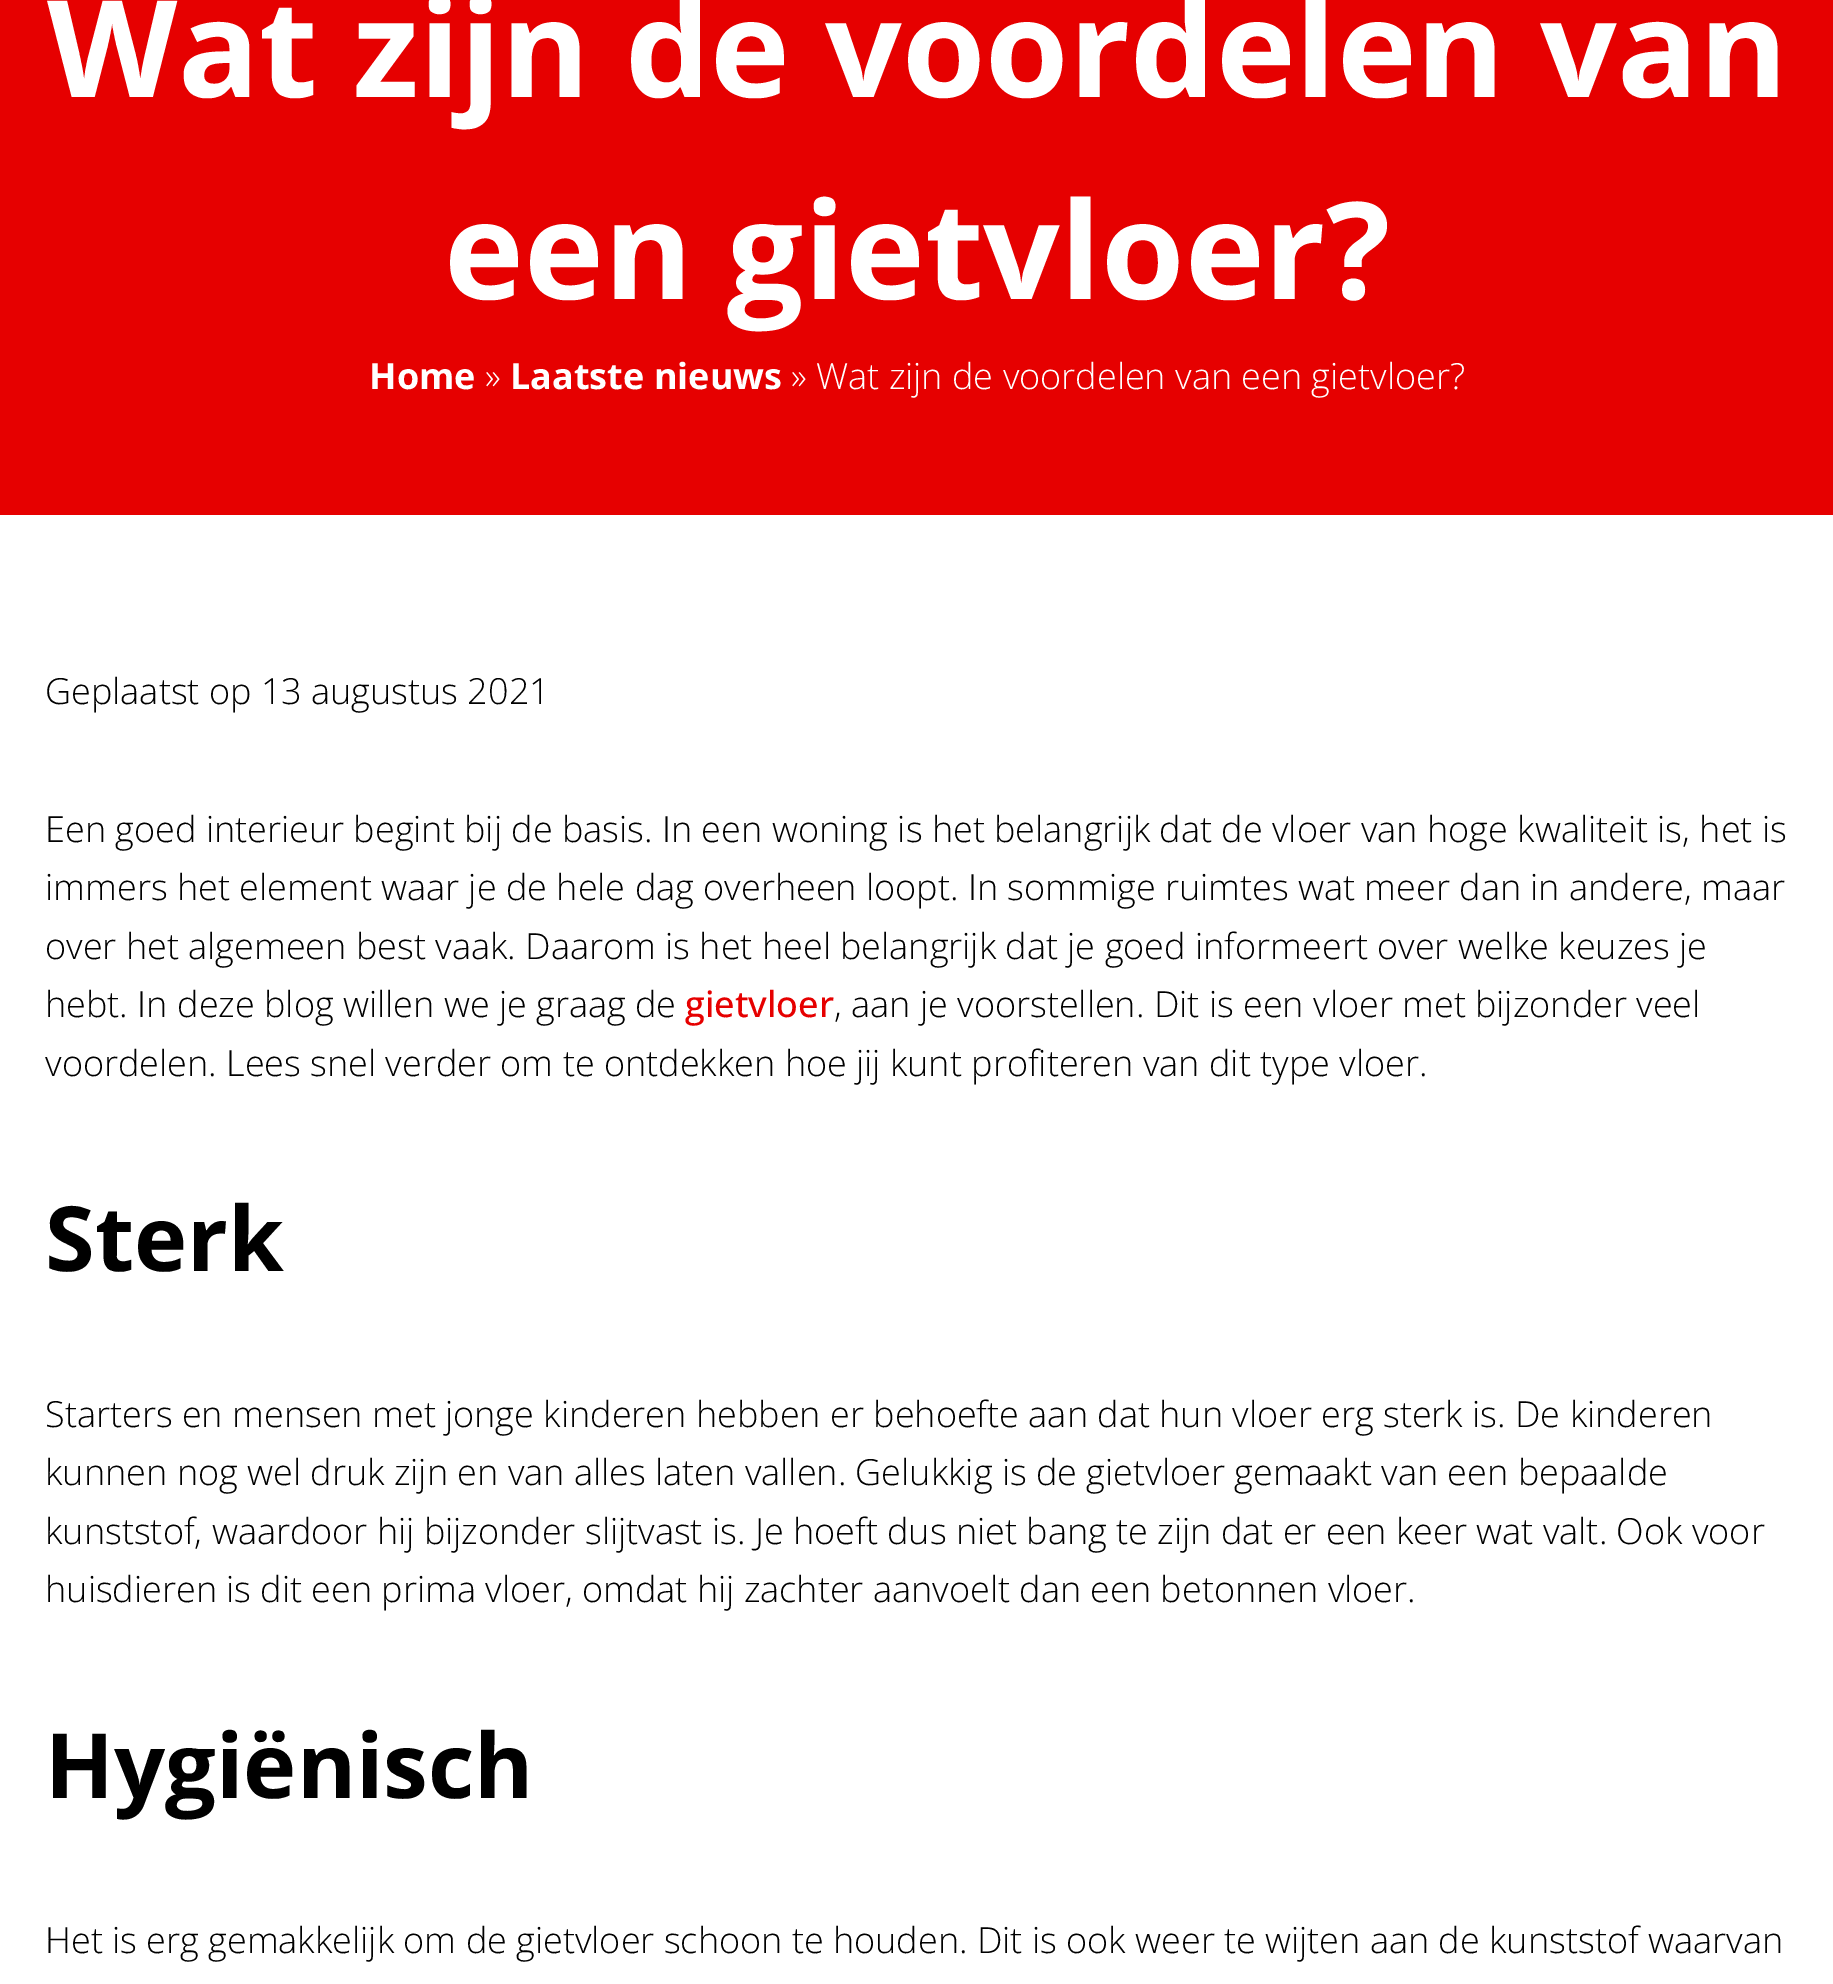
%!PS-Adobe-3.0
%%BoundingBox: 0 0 1833 1984
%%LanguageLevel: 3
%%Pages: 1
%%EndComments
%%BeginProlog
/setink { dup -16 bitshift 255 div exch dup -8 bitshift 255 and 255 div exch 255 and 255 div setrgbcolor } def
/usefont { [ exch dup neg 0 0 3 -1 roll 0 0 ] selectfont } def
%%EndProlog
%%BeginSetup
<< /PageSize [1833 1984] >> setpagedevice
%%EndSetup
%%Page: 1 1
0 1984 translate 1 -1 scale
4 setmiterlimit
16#FFFFFF setink
0 0 1833 1984 rectfill
16#E60000 setink
0 0 1833 515 rectfill
/OpenSans-Bold 135 usefont
16#FFFFFF setink
47 97 moveto (Wat zijn de voordelen van) show
444 299 moveto (een gietvloer?) show
/OpenSans-Bold 36 usefont
369 389 moveto (Home) show
/OpenSans-Light 36 usefont
485 389 moveto (») show
/OpenSans-Bold 36 usefont
510 389 moveto (Laatste nieuws) show
/OpenSans-Light 36 usefont
791 389 moveto (» Wat zijn de voordelen van een gietvloer?) show
16#000000 setink
[
    [(Geplaatst op 13 augustus 2021) 45 704]
    [(Een goed interieur begint bij de basis. In een woning is het belangrijk dat de vloer van hoge kwaliteit is, het is) 45 842]
    [(immers het element waar je de hele dag overheen loopt. In sommige ruimtes wat meer dan in andere, maar) 45 900]
    [(over het algemeen best vaak. Daarom is het heel belangrijk dat je goed informeert over welke keuzes je) 45 959]
    [(hebt. In deze blog willen we je graag de) 45 1017]
] { aload pop moveto show } forall
/OpenSans-Medium 36 usefont
16#E60000 setink
685 1017 moveto (gietvloer) show
/OpenSans-Light 36 usefont
16#000000 setink
834 1017 moveto (, aan je voorstellen. Dit is een vloer met bijzonder veel) show
45 1076 moveto (voordelen. Lees snel verder om te ontdekken hoe jij kunt profiteren van dit type vloer.) show
/OpenSans-Bold 90 usefont
45 1271 moveto (Sterk) show
/OpenSans-Light 36 usefont
[
    [(Starters en mensen met jonge kinderen hebben er behoefte aan dat hun vloer erg sterk is. De kinderen) 45 1427]
    [(kunnen nog wel druk zijn en van alles laten vallen. Gelukkig is de gietvloer gemaakt van een bepaalde) 45 1485]
    [(kunststof, waardoor hij bijzonder slijtvast is. Je hoeft dus niet bang te zijn dat er een keer wat valt. Ook voor) 45 1544]
    [(huisdieren is dit een prima vloer, omdat hij zachter aanvoelt dan een betonnen vloer.) 45 1602]
] { aload pop moveto show } forall
/OpenSans-Bold 90 usefont
45 1798 moveto (Hygiënisch) show
/OpenSans-Light 36 usefont
45 1953 moveto (Het is erg gemakkelijk om de gietvloer schoon te houden. Dit is ook weer te wijten aan de kunststof waarvan) show
showpage
%%EOF
